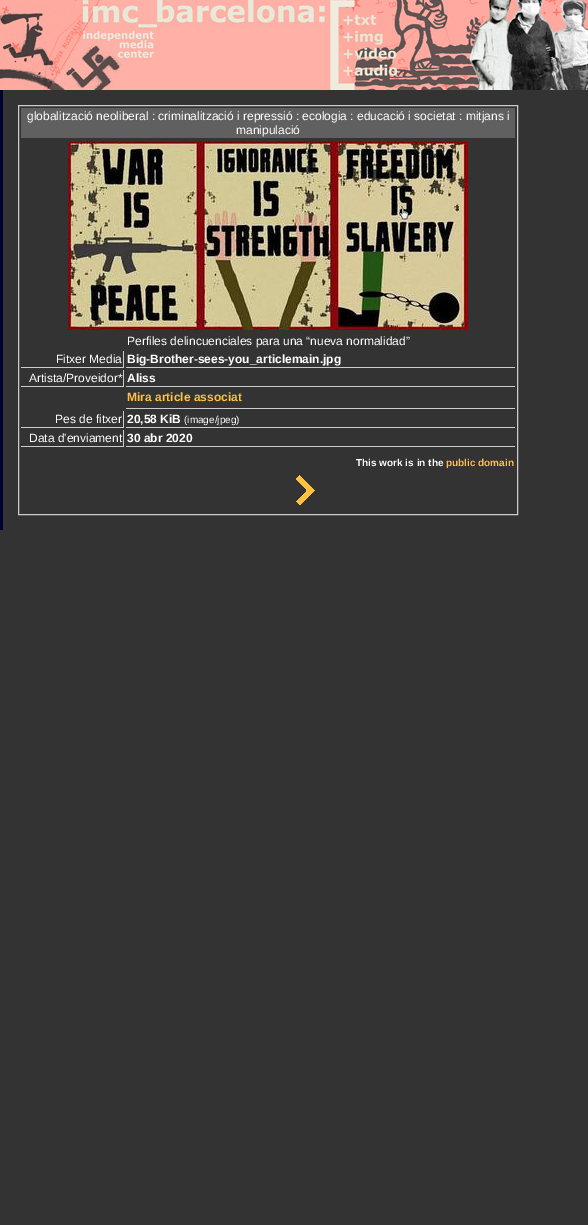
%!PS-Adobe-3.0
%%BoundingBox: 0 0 588 1225
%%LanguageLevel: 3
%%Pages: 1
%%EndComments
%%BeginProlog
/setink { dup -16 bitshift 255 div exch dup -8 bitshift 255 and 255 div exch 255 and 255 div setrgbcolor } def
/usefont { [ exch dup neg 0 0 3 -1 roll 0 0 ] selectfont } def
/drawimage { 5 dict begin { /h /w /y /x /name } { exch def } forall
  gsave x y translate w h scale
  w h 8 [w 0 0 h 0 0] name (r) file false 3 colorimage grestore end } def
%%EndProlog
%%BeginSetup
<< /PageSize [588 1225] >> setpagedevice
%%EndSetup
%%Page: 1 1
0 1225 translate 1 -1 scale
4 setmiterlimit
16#333333 setink
0 0 588 1225 rectfill
(img1.raw) 0 0 157 90 drawimage
(img2.raw) 157 0 431 90 drawimage
16#000033 setink
0 90 3 440 rectfill
16#CCCCCC setink
18.5 105.5 499 409 rectstroke
16#606060 setink
21 108 494 30 rectfill
/LiberationSans-Regular 12 usefont
16#FFFFFF setink
27 120 moveto (globalització neoliberal : criminalització i repressió : ecologia : educació i societat : mitjans i) show
236 134 moveto (manipulació) show
(img3.raw) 68 141 400 189 drawimage
127 345 moveto (Perfiles delincuenciales para una “nueva normalidad”) show
16#CCCCCC setink
123 351 1 17 rectfill
21 367 103 1 rectfill
16#FFFFFF setink
56 363 moveto (Fitxer Media) show
16#CCCCCC setink
126 367 389 1 rectfill
/LiberationSans-Bold 12 usefont
16#FFFFFF setink
127 363 moveto (Big-Brother-sees-you_articlemain.jpg) show
16#CCCCCC setink
123 370 1 17 rectfill
21 386 103 1 rectfill
/LiberationSans-Regular 12 usefont
16#FFFFFF setink
29 382 moveto (Artista/Proveidor*) show
16#CCCCCC setink
126 386 389 1 rectfill
/LiberationSans-Bold 12 usefont
16#FFFFFF setink
127 382 moveto (Aliss) show
16#CCCCCC setink
126 408 389 1 rectfill
16#FFC140 setink
127 401 moveto (Mira article associat) show
16#CCCCCC setink
123 411 1 17 rectfill
21 427 103 1 rectfill
/LiberationSans-Regular 12 usefont
16#FFFFFF setink
55 423 moveto (Pes de fitxer) show
16#CCCCCC setink
126 427 389 1 rectfill
/LiberationSans-Bold 12 usefont
16#FFFFFF setink
127 423 moveto (20,58 KiB) show
/LiberationSans-Regular 10 usefont
184 423 moveto (\(image/jpeg\)) show
16#CCCCCC setink
123 430 1 17 rectfill
21 446 103 1 rectfill
/LiberationSans-Regular 12 usefont
16#FFFFFF setink
29 442 moveto (Data d'enviament) show
16#CCCCCC setink
126 446 389 1 rectfill
/LiberationSans-Bold 12 usefont
16#FFFFFF setink
127 442 moveto (30 abr 2020) show
/LiberationSans-Bold 10 usefont
356 466 moveto (This work is in the) show
16#FFC140 setink
446 466 moveto (public domain) show
(img4.raw) 296 475 19 30 drawimage
showpage
%%EOF
